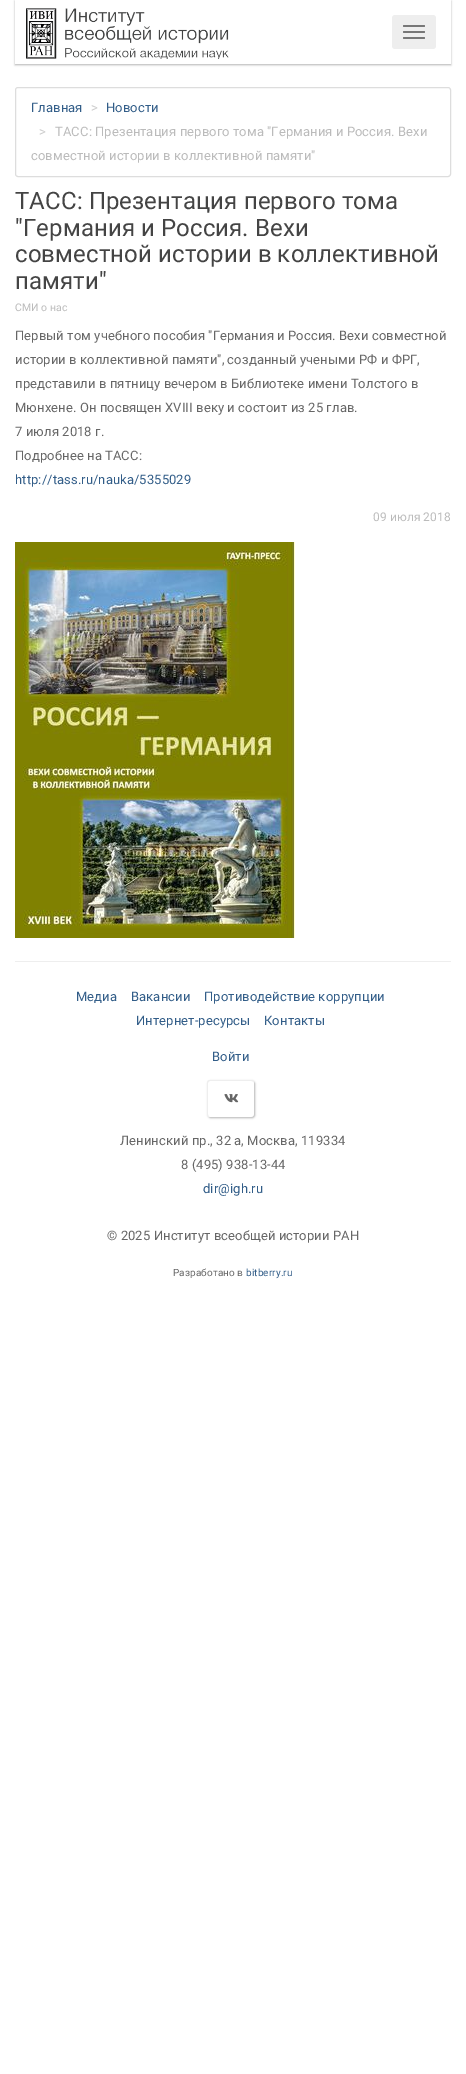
%!PS-Adobe-3.0
%%BoundingBox: 0 0 466 2074
%%LanguageLevel: 3
%%Pages: 1
%%EndComments
%%BeginProlog
/setink { dup -16 bitshift 255 div exch dup -8 bitshift 255 and 255 div exch 255 and 255 div setrgbcolor } def
/usefont { [ exch dup neg 0 0 3 -1 roll 0 0 ] selectfont } def
/setalpha { dup .setfillconstantalpha .setstrokeconstantalpha } def
/rrect { 5 dict begin { /r /h /w /y /x } { exch def } forall
  x r add y moveto x w add y 2 copy h add r arct x w add y h add x 1 index r arct
  x y h add x y r arct x y 2 copy exch w add exch r arct closepath end } def
/softshadow { 12 dict begin { /a /b /q /h /w /y /x } { exch def } forall gsave /was 0 def
  9 -2 -9 { dup b mul 4 div /e exch def 1 sub .425 mul 2.718 exch exp 1 add a .99 .min exch div /now exch def
    1 1 now sub 1 was sub div sub setalpha /was now def
    w h .min e 2 mul add 0 gt { x e sub y e sub w e 2 mul add h e 2 mul add
      q e add b .6 mul add w h .min 2 div e add .min 0 .max rrect fill } if } for grestore end } def
/drawimage { 5 dict begin { /h /w /y /x /name } { exch def } forall
  gsave x y translate w h scale
  w h 8 [w 0 0 h 0 0] name (r) file false 3 colorimage grestore end } def
%%EndProlog
%%BeginSetup
<< /PageSize [466 2074] /PageUsesTransparency true >> setpagedevice
%%EndSetup
%%Page: 1 1
0 .pushpdf14devicefilter
0 2074 translate 1 -1 scale
4 setmiterlimit
16#FFFFFF setink
0 0 466 2074 rectfill
gsave
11 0 moveto 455 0 lineto 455 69 lineto 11 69 lineto closepath 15 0 moveto 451 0 lineto 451 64 lineto 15 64 lineto closepath eoclip newpath
16#000000 setink
15 1 436 64 0 1 0.3 softshadow
grestore
(img1.raw) 26 8 203 51 drawimage
16#EEEEEE setink
392 15 44 34 3 rrect fill
16#777777 setink
403 25 22 2 1 rrect fill
403 31 22 2 1 rrect fill
403 37 22 2 1 rrect fill
16#DDDDDD setink
15.5 87.5 435 89 2.5 rrect stroke
/Roboto-Regular 13 usefont
16#325D88 setink
31 112 moveto 0.1 0 (Главная) ashow
16#CCCCCC setink
91 112 moveto 0.1 0 (>) ashow
16#325D88 setink
106 112 moveto 0.1 0 (Новости) ashow
16#CCCCCC setink
39 136 moveto 0.1 0 (>) ashow
16#BBBBBB setink
55 136 moveto 0.1 0 (ТАСС: Презентация первого тома "Германия и Россия. Вехи) ashow
31 160 moveto 0.1 0 (совместной истории в коллективной памяти") ashow
/Roboto-Regular 24 usefont
16#444444 setink
15 209 moveto 0.1 0 (ТАСС: Презентация первого тома) ashow
15 236 moveto 0.1 0 ("Германия и Россия. Вехи) ashow
15 262 moveto 0.1 0 (совместной истории в коллективной) ashow
15 289 moveto 0.1 0 (памяти") ashow
/Roboto-Regular 10.5 usefont
16#BBBBBB setink
15 311 moveto 0.1 0 (СМИ о нас) ashow
/Roboto-Regular 13 usefont
16#666666 setink
15 340 moveto 0.1 0 (Первый том учебного пособия "Германия и Россия. Вехи совместной) ashow
15 364 moveto 0.1 0 (истории в коллективной памяти", созданный учеными РФ и ФРГ,) ashow
15 388 moveto 0.1 0 (представили в пятницу вечером в Библиотеке имени Толстого в) ashow
15 412 moveto 0.1 0 (Мюнхене. Он посвящен XVIII веку и состоит из 25 глав.) ashow
15 436 moveto 0.1 0 (7 июля 2018 г.) ashow
15 460 moveto 0.1 0 (Подробнее на ТАСС:) ashow
16#325D88 setink
15 484 moveto 0.1 0 (http://tass.ru/nauka/5355029) ashow
/Roboto-Regular 12 usefont
16#BBBBBB setink
373 521 moveto 0.1 0 (09 июля 2018) ashow
(img2.raw) 15 542 280 396 drawimage
16#EEEEEE setink
15 961 436 1 rectfill
/Roboto-Regular 13 usefont
16#325D88 setink
76 1001 moveto 0.1 0 (Медиа) ashow
131 1001 moveto 0.1 0 (Вакансии) ashow
204 1001 moveto 0.1 0 (Противодействие коррупции) ashow
136 1025 moveto 0.1 0 (Интернет-ресурсы) ashow
264 1025 moveto 0.1 0 (Контакты) ashow
212 1061 moveto 0.1 0 (Войти) ashow
16#000000 setink
208 1081 47 37 3 1 0.3 softshadow
16#FFFFFF setink
207 1080 47 37 3 rrect fill
16#EEEEEE setink
210 1080 moveto 251 1080 lineto 253 1080 254 1081 254 1083 curveto 254 1114 lineto 254 1116 253 1117 251 1117 curveto 210 1117 lineto 208 1117 207 1116 207 1114 curveto 207 1083 lineto 207 1081 208 1080 210 1080 curveto closepath 210 1081 moveto 251 1081 lineto 253 1081 254 1082 254 1083 curveto 254 1114 lineto 254 1116 253 1117 251 1117 curveto 210 1117 lineto 209 1117 208 1116 208 1114 curveto 208 1083 lineto 208 1082 209 1081 210 1081 curveto closepath eofill
(img3.raw) 224 1094 15 9 drawimage
16#666666 setink
120 1145 moveto 0.1 0 (Ленинский пр., 32 а, Москва, 119334) ashow
181 1169 moveto 0.1 0 (8 \(495\) 938-13-44) ashow
16#325D88 setink
203 1193 moveto 0.1 0 (dir@igh.ru) ashow
16#666666 setink
107 1240 moveto 0.1 0 (© 2025 Институт всеобщей истории РАН) ashow
/Roboto-Regular 10 usefont
173 1276 moveto 0.1 0 (Разработано в) ashow
16#325D88 setink
246 1276 moveto 0.1 0 (bitberry.ru) ashow
.poppdf14devicefilter showpage
%%EOF
